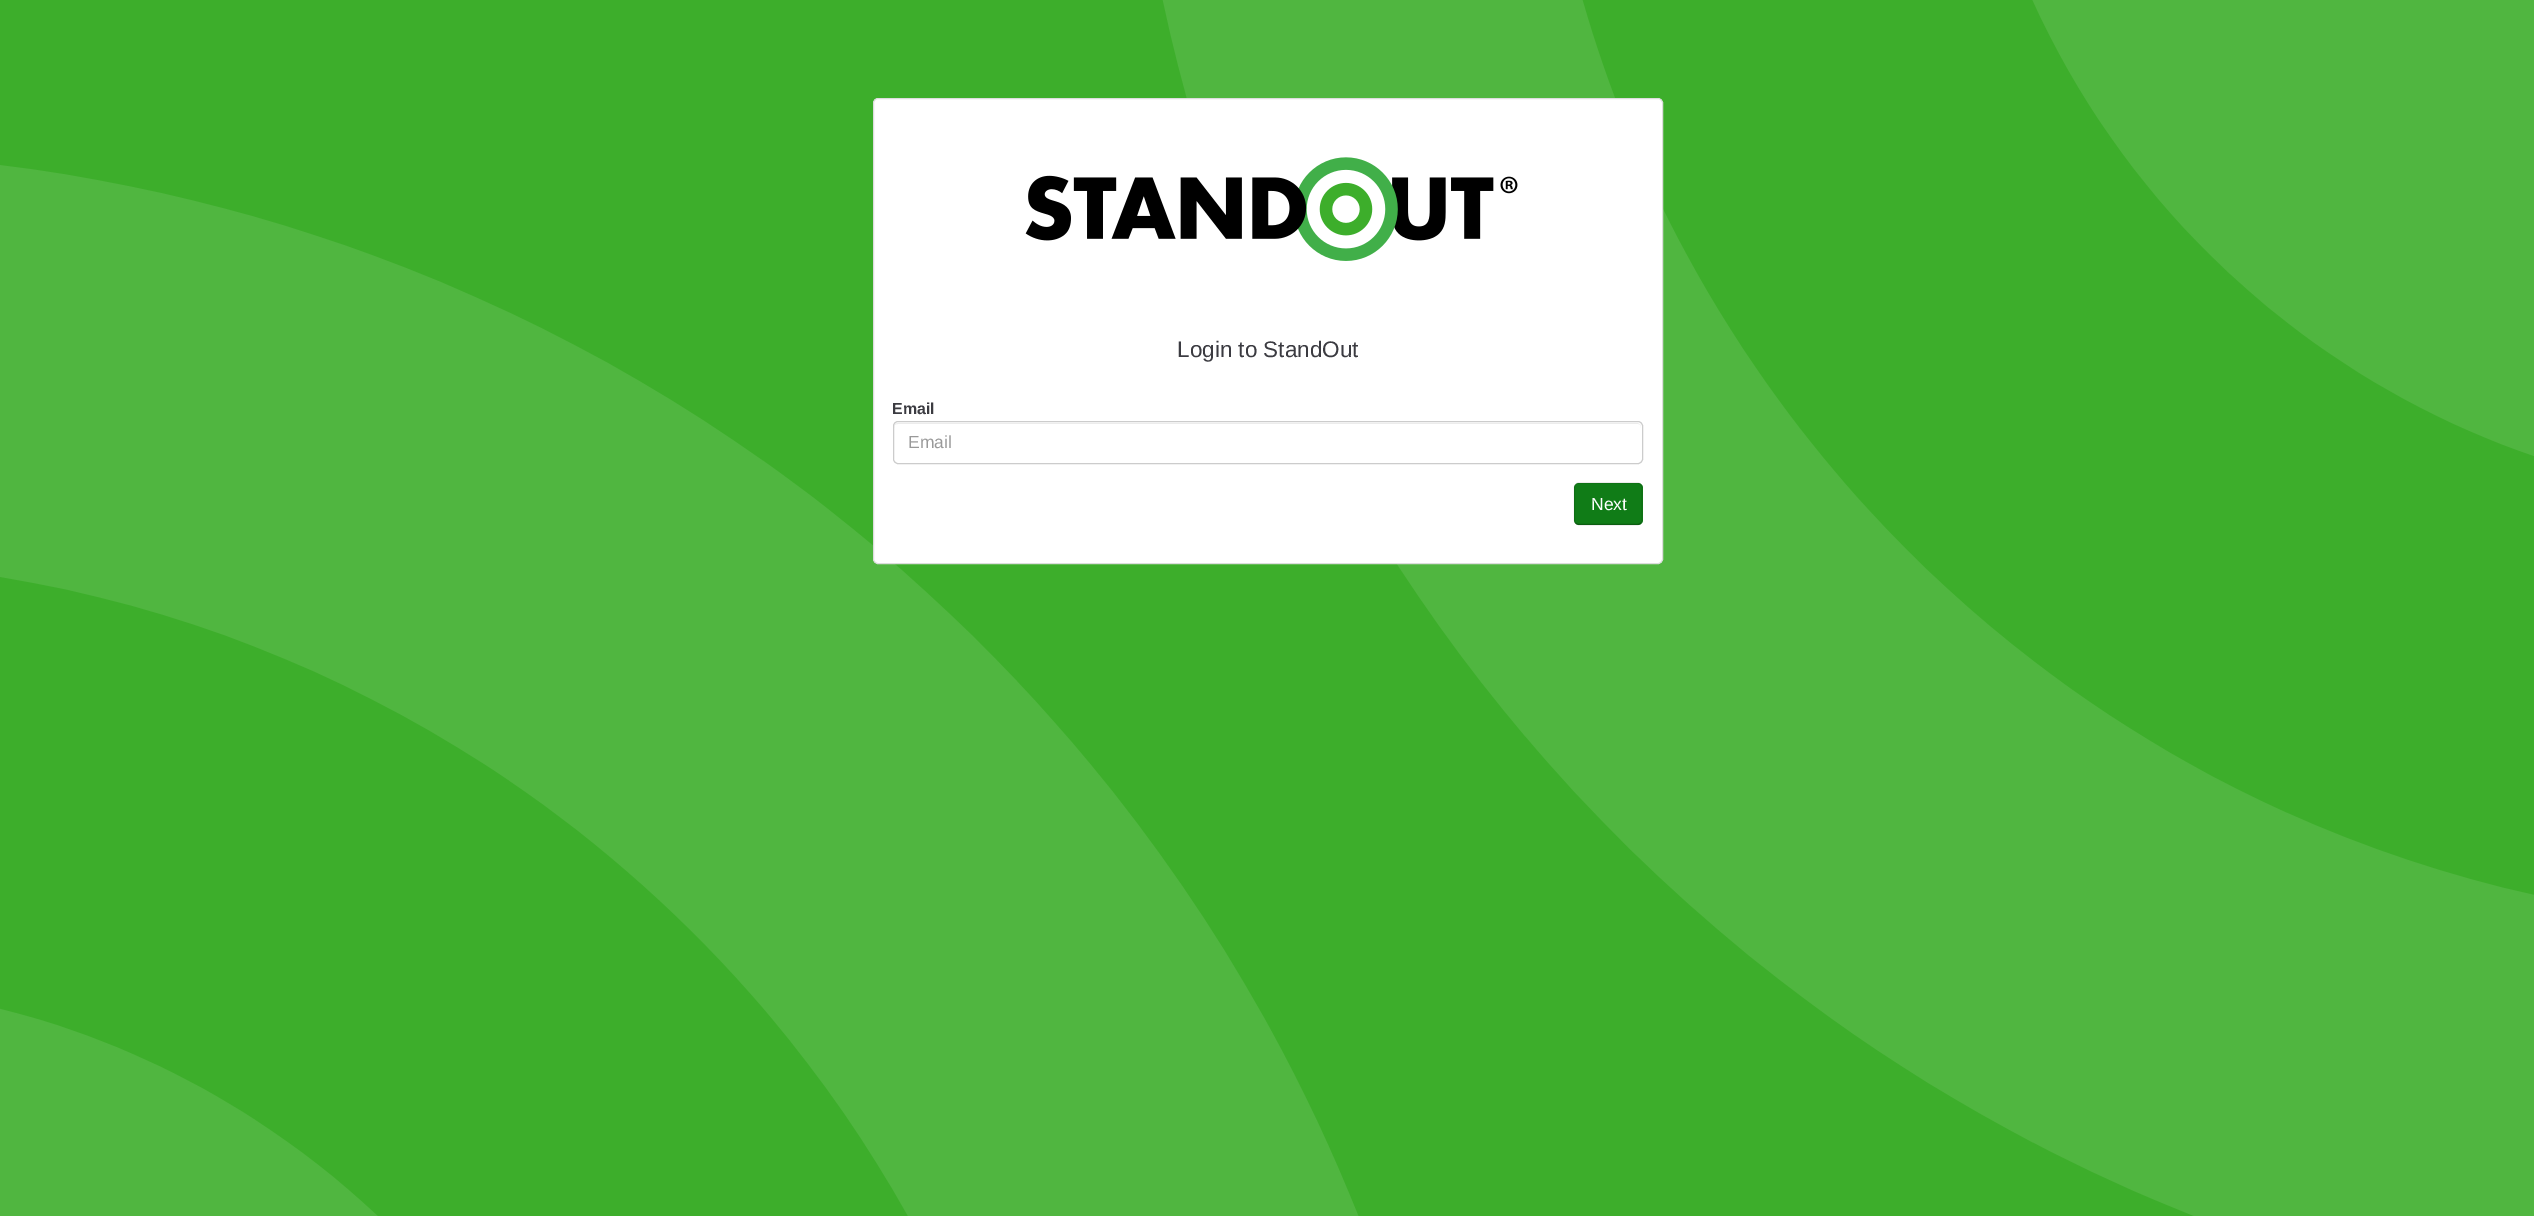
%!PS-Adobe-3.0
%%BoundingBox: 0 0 2534 1216
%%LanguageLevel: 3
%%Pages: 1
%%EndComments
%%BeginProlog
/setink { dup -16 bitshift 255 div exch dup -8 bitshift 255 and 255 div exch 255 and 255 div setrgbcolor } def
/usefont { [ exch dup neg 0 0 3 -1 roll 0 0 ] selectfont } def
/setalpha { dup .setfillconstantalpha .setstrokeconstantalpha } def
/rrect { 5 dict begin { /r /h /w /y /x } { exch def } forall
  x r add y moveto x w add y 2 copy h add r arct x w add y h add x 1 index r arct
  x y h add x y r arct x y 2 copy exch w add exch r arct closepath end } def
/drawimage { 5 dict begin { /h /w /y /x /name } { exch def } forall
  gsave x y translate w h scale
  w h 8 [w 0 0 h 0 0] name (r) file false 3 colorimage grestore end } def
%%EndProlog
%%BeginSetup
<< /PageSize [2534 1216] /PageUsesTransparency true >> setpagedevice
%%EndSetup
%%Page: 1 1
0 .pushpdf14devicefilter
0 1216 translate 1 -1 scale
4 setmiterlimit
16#3DAE2B setink
0 0 2534 1216 rectfill
(img1.raw) 0 0 2534 1216 drawimage
16#FFFFFF setink
873.5 98.5 789 465 4.5 rrect gsave fill grestore
16#DDDDDD setink
stroke
(img2.raw) 1025 157 493 104 drawimage
/LiberationSans-Regular 22.5 usefont
16#3B3B41 setink
1177 357 moveto (Login to StandOut) show
/LiberationSans-Bold 16 usefont
892 414 moveto (Email) show
16#ECECEC setink
898 424 moveto 1638 424 lineto 1640 424 1641 425 1641 428 curveto 1641 427 lineto 1641 425 1639 423 1637 423 curveto 898 423 lineto 896 423 894 425 894 427 curveto 894 428 lineto 894 425 895 424 898 424 curveto closepath fill
16#CCCCCC setink
893.5 421.5 749 42 4.5 rrect stroke
/LiberationSans-Regular 17.5 usefont
16#999999 setink
908 448 moveto (Email) show
16#107C17 setink
1574 483 69 42 5 rrect fill
0.25 setalpha
16#000000 setink
1.2 setlinewidth
1640.5 523 moveto 1640 524 1638.5 524.5 1637.5 524.5 curveto 1579 524.5 lineto 1577.5 524.5 1576.5 524 1575.5 523 curveto stroke
0.1 setalpha
1575.5 523 moveto 1575 522.5 1574.5 521 1574.5 520 curveto 1574.5 487.5 lineto 1574.5 486.5 1575 485 1575.5 484.5 curveto 1576.5 483.5 1577.5 483 1579 483 curveto 1637.5 483 lineto 1638.5 483 1640 483.5 1640.5 484.5 curveto 1641.5 485 1642 486.5 1642 487.5 curveto 1642 520 lineto 1642 521 1641.5 522.5 1640.5 523 curveto stroke
1 setalpha
16#FFFFFF setink
1591 510 moveto (Next) show
.poppdf14devicefilter showpage
%%EOF
